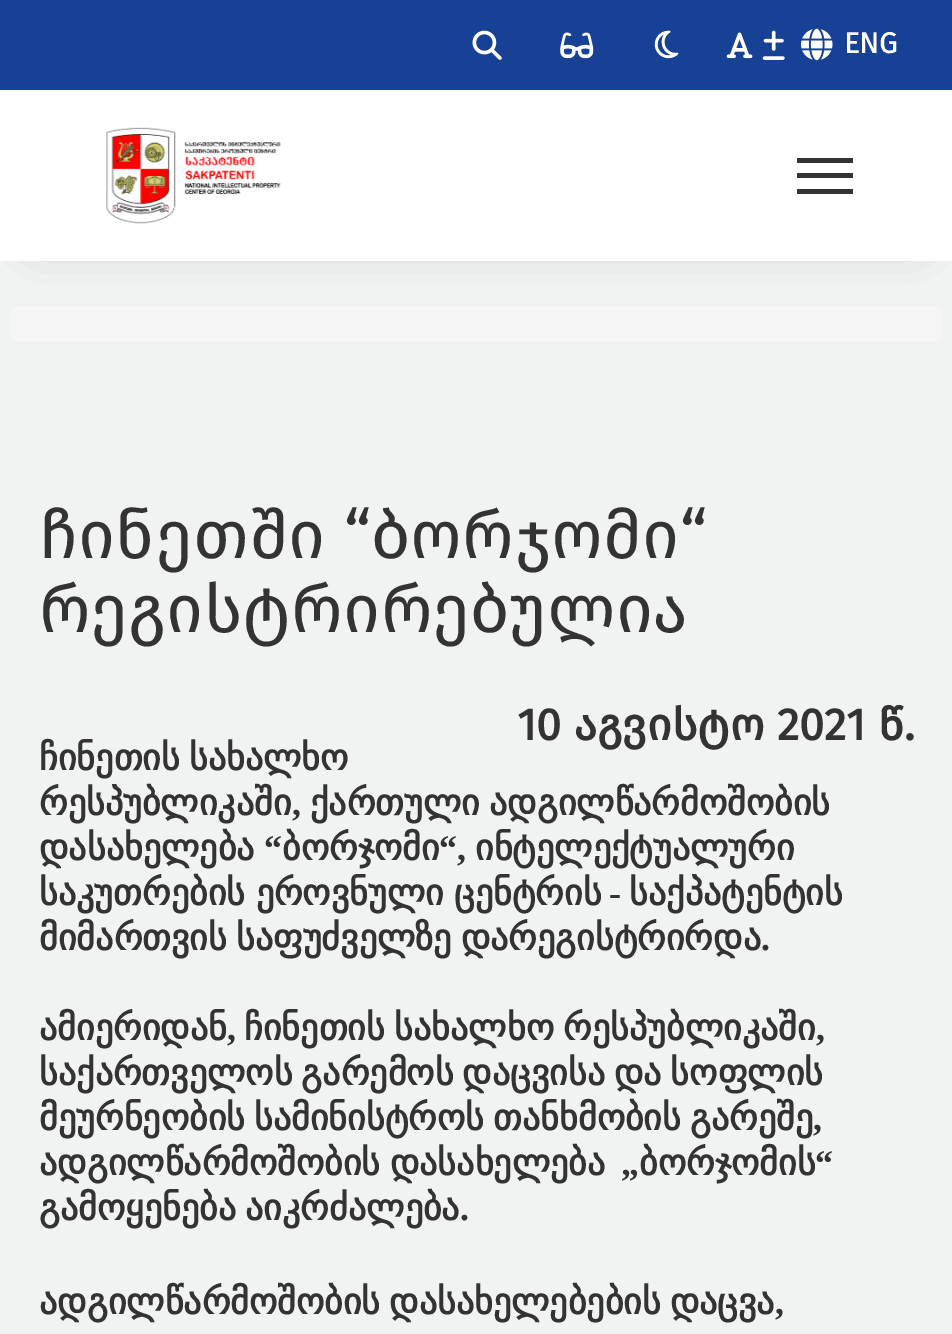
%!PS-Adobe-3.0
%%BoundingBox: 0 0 952 1334
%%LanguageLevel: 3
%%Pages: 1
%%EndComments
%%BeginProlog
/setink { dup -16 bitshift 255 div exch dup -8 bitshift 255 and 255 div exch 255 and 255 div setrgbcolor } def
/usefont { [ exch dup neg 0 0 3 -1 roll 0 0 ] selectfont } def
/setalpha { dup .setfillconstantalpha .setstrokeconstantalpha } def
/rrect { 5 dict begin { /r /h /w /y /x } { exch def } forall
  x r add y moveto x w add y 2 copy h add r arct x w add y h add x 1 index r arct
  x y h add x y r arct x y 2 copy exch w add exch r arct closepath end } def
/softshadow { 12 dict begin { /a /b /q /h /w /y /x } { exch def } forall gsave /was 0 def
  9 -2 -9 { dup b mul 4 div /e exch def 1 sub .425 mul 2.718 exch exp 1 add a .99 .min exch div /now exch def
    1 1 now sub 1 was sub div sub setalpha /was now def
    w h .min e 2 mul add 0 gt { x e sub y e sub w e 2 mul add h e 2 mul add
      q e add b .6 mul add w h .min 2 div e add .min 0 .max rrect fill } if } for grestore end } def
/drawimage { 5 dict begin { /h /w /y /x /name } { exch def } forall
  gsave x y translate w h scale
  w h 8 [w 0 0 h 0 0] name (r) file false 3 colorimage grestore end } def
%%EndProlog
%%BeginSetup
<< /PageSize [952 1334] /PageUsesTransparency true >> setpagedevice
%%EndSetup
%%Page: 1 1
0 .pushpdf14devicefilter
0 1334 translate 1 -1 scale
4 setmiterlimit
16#F1F2F2 setink
0 0 952 1334 rectfill
16#000000 setink
38 140 878 94 0 22.5 0.34 softshadow
16#164194 setink
0 0 952 90 rectfill
(img1.raw) 472 30 30 30 drawimage
(img2.raw) 560 32 34 27 drawimage
(img3.raw) 654 30 25 29 drawimage
(img4.raw) 726 32 27 27 drawimage
(img5.raw) 762 30 23 30 drawimage
(img6.raw) 801 28 32 33 drawimage
/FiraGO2-Bold 29 usefont
16#FFFFFF setink
844 53 moveto (ENG) show
0 90 952 171 rectfill
(img7.raw) 106 127 175 97 drawimage
[
    [797 158 56 5 16#333333]
    [797 173 56 5 16#333333]
    [797 189 56 5 16#333333]
] { aload pop setink rectfill } forall
16#F5F5F5 setink
11 306 932 36 9 rrect fill
/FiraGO-Regular 67.5 usefont
16#333333 setink
39 558 moveto (ჩინეთში “ბორჯომი“) show
39 632 moveto (რეგისტრირებულია) show
/FiraGO-Bold 45 usefont
517 740 moveto (10 აგვისტო 2021 წ.) show
/DejaVuSans-Bold 36 usefont
39 770 moveto -2.5 0 32 (ჩინეთის სახალხო) widthshow
39 815 moveto (რესპუბლიკაში) show
/LiberationSerif-Bold 36 usefont
292 815 moveto (,) show
/DejaVuSans-Bold 36 usefont
310 815 moveto -2.5 0 32 (ქართული ადგილწარმოშობის) widthshow
39 860 moveto (დასახელება) show
/LiberationSerif-Bold 36 usefont
264 860 moveto (“) show
/DejaVuSans-Bold 36 usefont
282 860 moveto (ბორჯომი) show
/LiberationSerif-Bold 36 usefont
439 860 moveto (“,) show
/DejaVuSans-Bold 36 usefont
475 860 moveto (ინტელექტუალური) show
39 905 moveto -1 0 32 (საკუთრების ეროვნული ცენტრის) widthshow
/LiberationSerif-Bold 36 usefont
609 905 moveto (-) show
/DejaVuSans-Bold 36 usefont
629 905 moveto (საქპატენტის) show
39 950 moveto -2.5 0 32 (მიმართვის საფუძველზე დარეგისტრირდა) widthshow
/LiberationSerif-Bold 36 usefont
761 950 moveto (.) show
/DejaVuSans-Bold 36 usefont
39 1040 moveto (ამიერიდან) show
/LiberationSerif-Bold 36 usefont
227 1040 moveto (,) show
/DejaVuSans-Bold 36 usefont
244 1040 moveto -2 0 32 (ჩინეთის სახალხო რესპუბლიკაში) widthshow
/LiberationSerif-Bold 36 usefont
816 1040 moveto (,) show
/DejaVuSans-Bold 36 usefont
39 1085 moveto -2.5 0 32 (საქართველოს გარემოს დაცვისა და სოფლის) widthshow
39 1130 moveto -2.5 0 32 (მეურნეობის სამინისტროს თანხმობის გარეშე) widthshow
/LiberationSerif-Bold 36 usefont
813 1130 moveto (,) show
/DejaVuSans-Bold 36 usefont
39 1175 moveto -2 0 32 (ადგილწარმოშობის დასახელება) widthshow
639 1175 moveto (ბორჯომის) show
/LiberationSerif-Bold 36 usefont
815 1175 moveto (“) show
621 1175 moveto („) show
/DejaVuSans-Bold 36 usefont
39 1220 moveto -2.5 0 32 (გამოყენება აიკრძალება) widthshow
/LiberationSerif-Bold 36 usefont
460 1220 moveto (.) show
/DejaVuSans-Bold 36 usefont
39 1314 moveto -2.5 0 32 (ადგილწარმოშობის დასახელებების დაცვა) widthshow
/LiberationSerif-Bold 36 usefont
775 1314 moveto (,) show
.poppdf14devicefilter showpage
%%EOF
